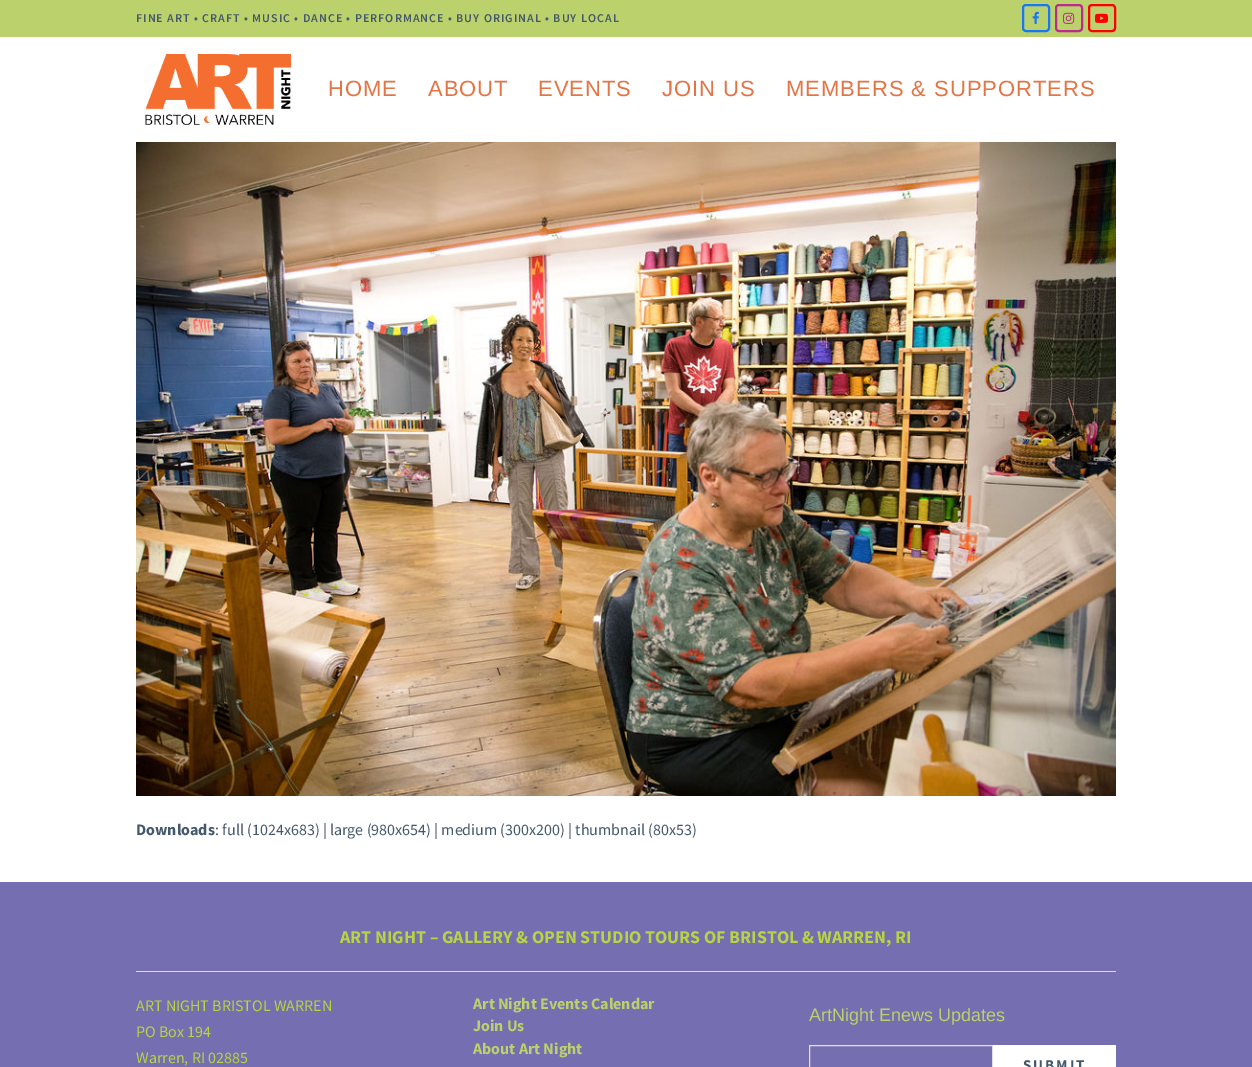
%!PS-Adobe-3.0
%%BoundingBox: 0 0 1252 1067
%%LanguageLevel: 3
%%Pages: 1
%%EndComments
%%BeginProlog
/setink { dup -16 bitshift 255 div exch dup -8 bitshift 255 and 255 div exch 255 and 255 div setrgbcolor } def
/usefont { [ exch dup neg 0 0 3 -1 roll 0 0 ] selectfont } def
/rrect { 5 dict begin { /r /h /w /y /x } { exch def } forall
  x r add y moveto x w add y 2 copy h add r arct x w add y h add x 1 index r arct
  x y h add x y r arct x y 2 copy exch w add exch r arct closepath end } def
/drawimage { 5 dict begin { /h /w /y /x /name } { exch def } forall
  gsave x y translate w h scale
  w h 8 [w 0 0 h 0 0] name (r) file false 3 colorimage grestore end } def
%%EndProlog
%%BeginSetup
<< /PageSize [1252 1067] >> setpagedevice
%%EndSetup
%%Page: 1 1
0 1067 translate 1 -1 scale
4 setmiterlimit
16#FFFFFF setink
0 0 1252 1067 rectfill
16#BBD16C setink
0 0 1252 37 rectfill
/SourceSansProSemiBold-SemiBold 12 usefont
16#45596D setink
136 22 moveto 1 0 (FINE ART • CRAFT • MUSIC • DANCE • PERFORMANCE • BUY ORIGINAL • BUY LOCAL) ashow
16#1877F2 setink
2 setlinewidth
1023 5 26 26 3 rrect stroke
(img1.raw) 1032 11 7 13 drawimage
16#BC2A8D setink
1056 5 26 26 3 rrect stroke
(img2.raw) 1063 12 12 12 drawimage
16#FF0000 setink
1089 5 26 26 3 rrect stroke
(img3.raw) 1095 13 13 10 drawimage
(img4.raw) 145 54 147 71 drawimage
/LiberationSans-Regular 22 usefont
16#E47444 setink
328 96 moveto 1 0 (HOME) ashow
428 96 moveto 1 0 (ABOUT) ashow
538 96 moveto 1 0 (EVENTS) ashow
662 96 moveto 1 0 (JOIN US) ashow
786 96 moveto 1 0 (MEMBERS & SUPPORTERS) ashow
(img5.raw) 136 142 980 654 drawimage
/SourceSansPro-Bold 16 usefont
16#45596D setink
136 835 moveto (Downloads) show
/SourceSansPro-Regular 16 usefont
215 835 moveto (: full \(1024x683\) | large \(980x654\) | medium \(300x200\) | thumbnail \(80x53\)) show
16#756EB0 setink
0 882 1252 185 rectfill
/SourceSansPro-Bold 18 usefont
16#B8D443 setink
340 943 moveto (ART NIGHT – GALLERY & OPEN STUDIO TOURS OF BRISTOL & WARREN, RI) show
16#DDDDDD setink
136 971 980 1 rectfill
/SourceSansPro-Regular 16 usefont
16#B8D443 setink
[
    [(ART NIGHT BRISTOL WARREN) 136 1011]
    [(PO Box 194) 136 1037]
    [(Warren, RI 02885) 136 1063]
] { aload pop moveto show } forall
/SourceSansPro-Bold 16 usefont
16#BBD16C setink
[
    [(Art Night Events Calendar) 473 1009]
    [(Join Us) 473 1031]
    [(About Art Night) 473 1054]
] { aload pop moveto show } forall
/LiberationSans-Regular 18 usefont
809 1021 moveto (ArtNight Enews Updates) show
16#E0E0E0 setink
1 setlinewidth
809.5 1045.5 183 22 rectstroke
16#FFFFFF setink
993 1045 123 22 rectfill
/SourceSansPro-Bold 15 usefont
16#45596D setink
1023 1070 moveto 2 0 (SUBMIT) ashow
showpage
%%EOF
